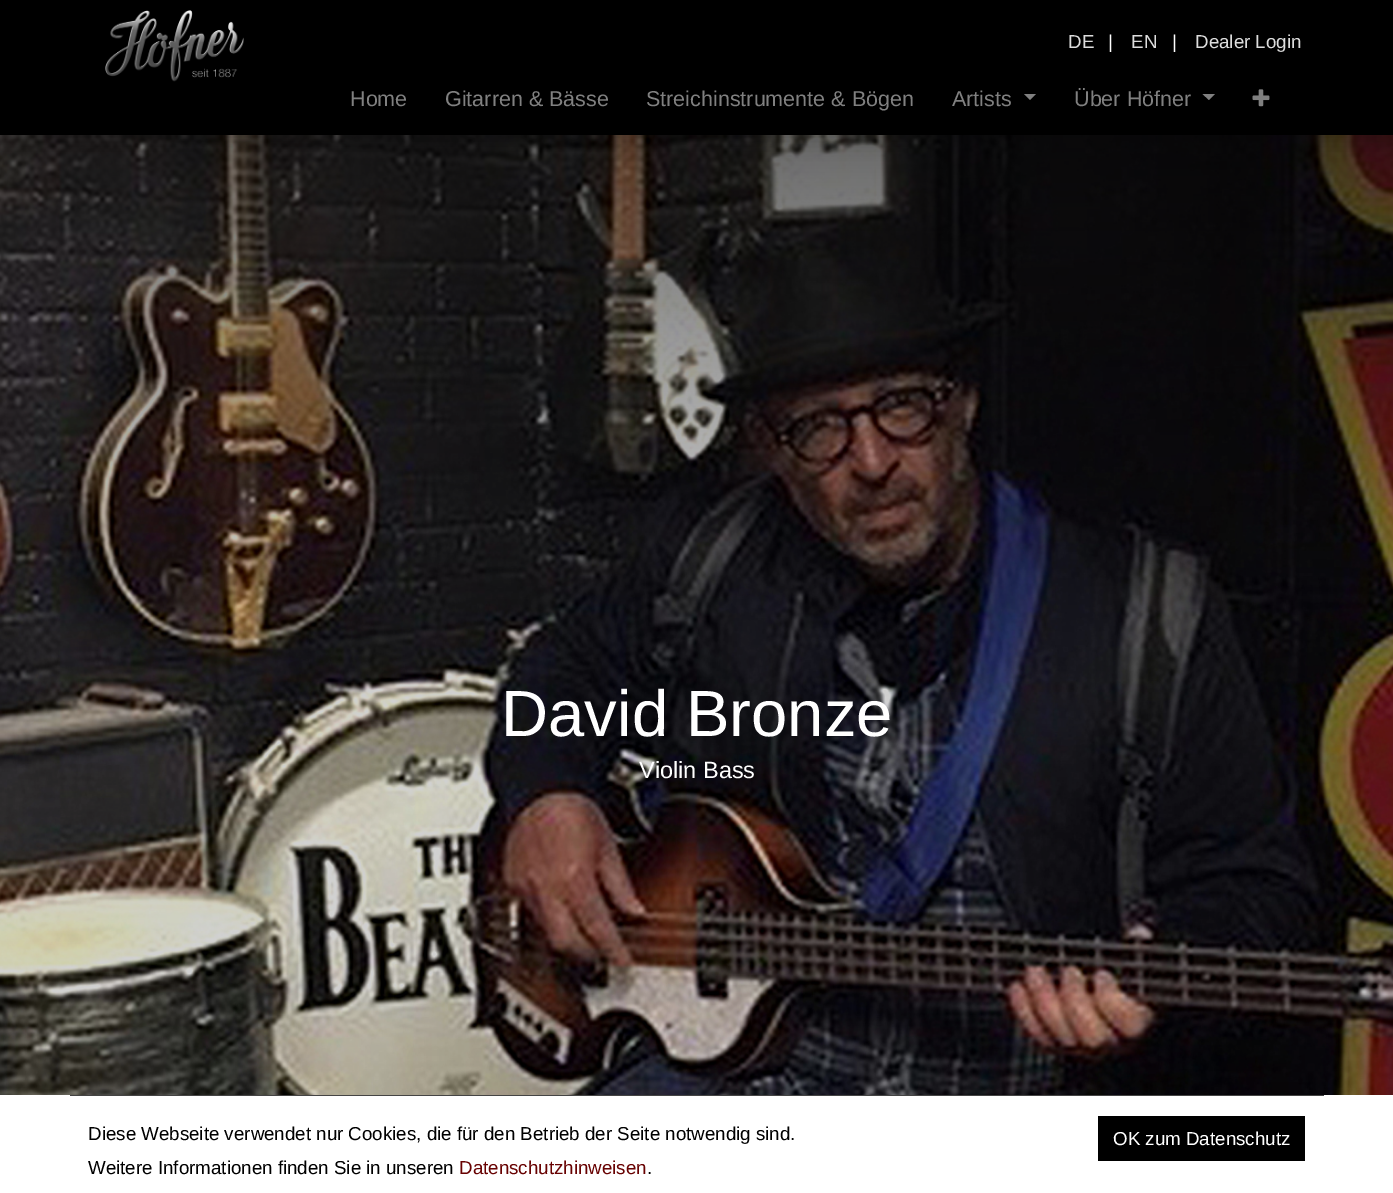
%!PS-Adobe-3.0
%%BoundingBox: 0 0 1393 1193
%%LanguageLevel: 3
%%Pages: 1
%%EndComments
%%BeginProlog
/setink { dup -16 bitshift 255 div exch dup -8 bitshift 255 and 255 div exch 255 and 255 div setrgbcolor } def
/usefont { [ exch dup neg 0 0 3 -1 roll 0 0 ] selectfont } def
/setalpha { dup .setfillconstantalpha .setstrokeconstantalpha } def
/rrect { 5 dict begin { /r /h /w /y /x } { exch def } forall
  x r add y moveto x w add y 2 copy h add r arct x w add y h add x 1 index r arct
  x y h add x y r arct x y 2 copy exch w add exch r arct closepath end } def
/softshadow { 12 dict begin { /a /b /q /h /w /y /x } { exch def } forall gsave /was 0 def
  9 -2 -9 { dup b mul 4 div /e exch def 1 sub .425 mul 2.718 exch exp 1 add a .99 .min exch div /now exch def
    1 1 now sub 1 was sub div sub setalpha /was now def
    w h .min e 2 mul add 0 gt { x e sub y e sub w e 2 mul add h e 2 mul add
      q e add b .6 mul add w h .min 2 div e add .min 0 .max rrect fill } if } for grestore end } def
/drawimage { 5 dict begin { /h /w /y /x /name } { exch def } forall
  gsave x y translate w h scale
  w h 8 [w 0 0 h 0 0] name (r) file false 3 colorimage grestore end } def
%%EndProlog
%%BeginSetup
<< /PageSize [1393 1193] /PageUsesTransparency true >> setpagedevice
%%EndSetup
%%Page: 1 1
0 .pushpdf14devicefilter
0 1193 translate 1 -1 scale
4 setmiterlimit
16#FFFFFF setink
0 0 1393 1193 rectfill
16#000000 setink
0 0 1393 74 rectfill
/LiberationSans-Regular 18.75 usefont
16#DDDDDD setink
1068 48 moveto (DE) show
16#FFFFFF setink
1108 48 moveto (|) show
16#DDDDDD setink
1131 48 moveto (EN) show
16#FFFFFF setink
1172 48 moveto (|) show
16#DDDDDD setink
1195 48 moveto (Dealer Login) show
(img3.raw) 0 135 1393 960 drawimage
16#000000 setink
0 84 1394 61 0 9.5 0.15 softshadow
0 74 1393 61 rectfill
(img1.raw) 105 10 139 72 drawimage
/LiberationSans-Regular 21.5 usefont
16#808080 setink
[
    [(Home) 350 106]
    [(Gitarren & Bässe) 445 106]
    [(Streichinstrumente & Bögen) 646 106]
    [(Artists) 952 106]
] { aload pop moveto show } forall
1024 94 moveto 1036 94 lineto 1030 100 lineto closepath fill
1074 106 moveto (Über Höfner) show
1202.5 94 moveto 1215 94 lineto 1209 100 lineto closepath fill
(img2.raw) 1252 89 18 18 drawimage
/LiberationSans-Regular 65.25 usefont
16#FFFFFF setink
501 736 moveto (David Bronze) show
/LiberationSans-Regular 23.5 usefont
639 778 moveto (Violin Bass) show
16#444444 setink
70 1095 1254 1 rectfill
/LiberationSans-Regular 18.75 usefont
16#000000 setink
88 1140 moveto (Diese Webseite verwendet nur Cookies, die für den Betrieb der Seite notwendig sind.) show
88 1174 moveto (Weitere Informationen finden Sie in unseren) show
16#680202 setink
459 1174 moveto (Datenschutzhinweisen) show
16#000000 setink
647 1174 moveto (.) show
1098 1116 207 45 rectfill
16#FFFFFF setink
1113 1145 moveto (OK zum Datenschutz) show
.poppdf14devicefilter showpage
%%EOF
